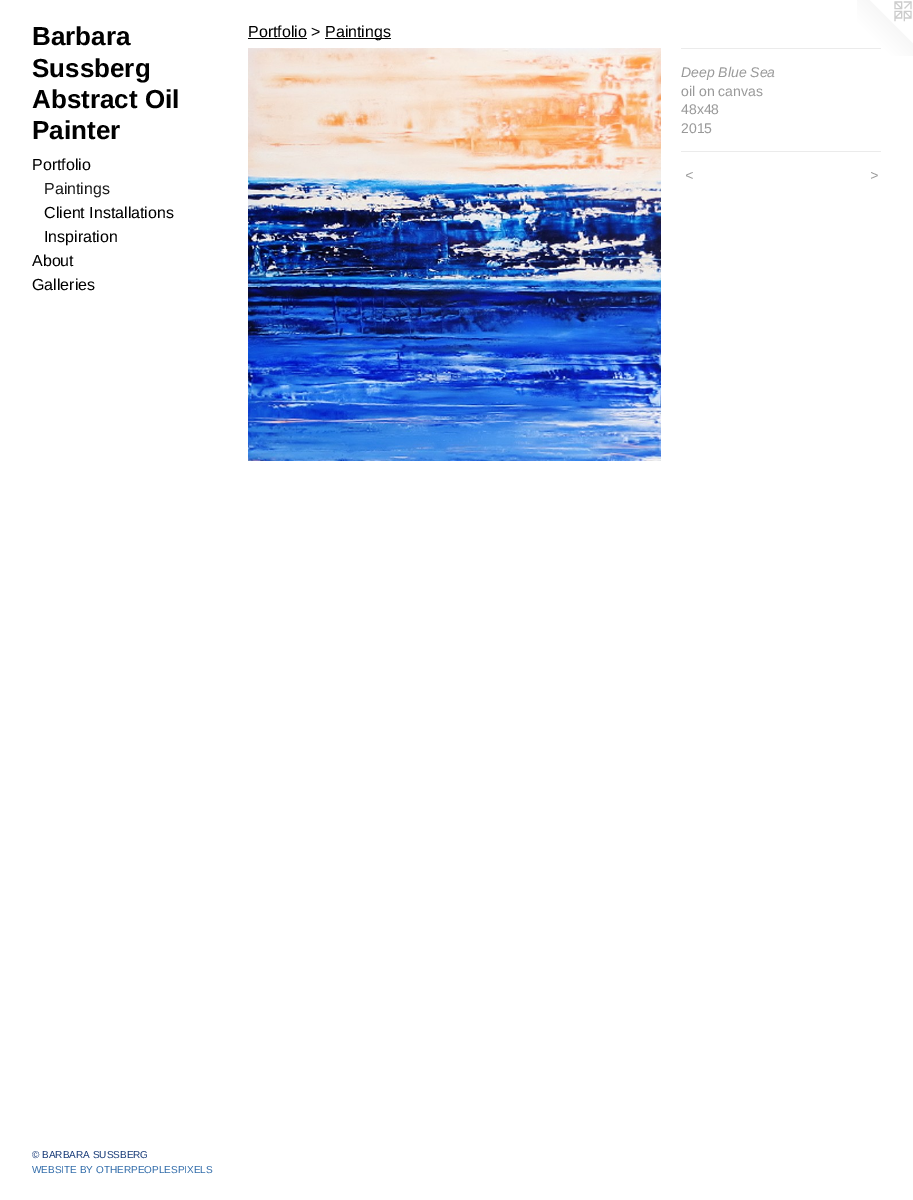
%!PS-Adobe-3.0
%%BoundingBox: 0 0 913 1200
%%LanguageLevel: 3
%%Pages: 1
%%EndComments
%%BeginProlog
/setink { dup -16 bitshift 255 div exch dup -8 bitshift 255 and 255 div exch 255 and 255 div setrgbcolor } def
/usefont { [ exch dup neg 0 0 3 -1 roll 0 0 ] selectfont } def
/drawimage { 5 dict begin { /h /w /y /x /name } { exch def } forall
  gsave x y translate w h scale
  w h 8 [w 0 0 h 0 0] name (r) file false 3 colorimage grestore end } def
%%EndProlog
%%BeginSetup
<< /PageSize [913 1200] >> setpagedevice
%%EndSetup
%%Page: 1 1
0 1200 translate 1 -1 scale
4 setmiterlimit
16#FFFFFF setink
0 0 913 1200 rectfill
/LiberationSans-Bold 26 usefont
16#000000 setink
[
    [(Barbara) 32 45]
    [(Sussberg) 32 77]
    [(Abstract Oil) 32 108]
    [(Painter) 32 139]
] { aload pop moveto show } forall
/LiberationSans-Regular 16 usefont
32 170 moveto (Portfolio) show
16#1A1A1A setink
44 194 moveto (Paintings) show
16#000000 setink
[
    [(Client Installations) 44 218]
    [(Inspiration) 44 242]
    [(About) 32 266]
    [(Galleries) 32 290]
] { aload pop moveto show } forall
/LiberationSans-Regular 10 usefont
16#173A78 setink
32 1158 moveto (© BARBARA SUSSBERG) show
16#316CAA setink
32 1173 moveto (WEBSITE BY OTHERPEOPLESPIXELS) show
/LiberationSans-Regular 16 usefont
16#000000 setink
248 37 moveto (Portfolio >) show
248 38 59 1 rectfill
325 38 66 1 rectfill
325 37 moveto (Paintings) show
(img1.raw) 248 48 413 413 drawimage
(img2.raw) 857 0 56 56 drawimage
16#EBEBEB setink
681 48 200 1 rectfill
/LiberationSans-Italic 14 usefont
16#999999 setink
681 77 moveto (Deep Blue Sea) show
/LiberationSans-Regular 14 usefont
[
    [(oil on canvas) 681 96]
    [(48x48) 681 114]
    [(2015) 681 133]
] { aload pop moveto show } forall
16#EBEBEB setink
681 151 200 1 rectfill
/LiberationSans-Italic 14 usefont
16#999999 setink
685 180 moveto 1 0 (<) ashow
870 180 moveto 1 0 (>) ashow
showpage
%%EOF
